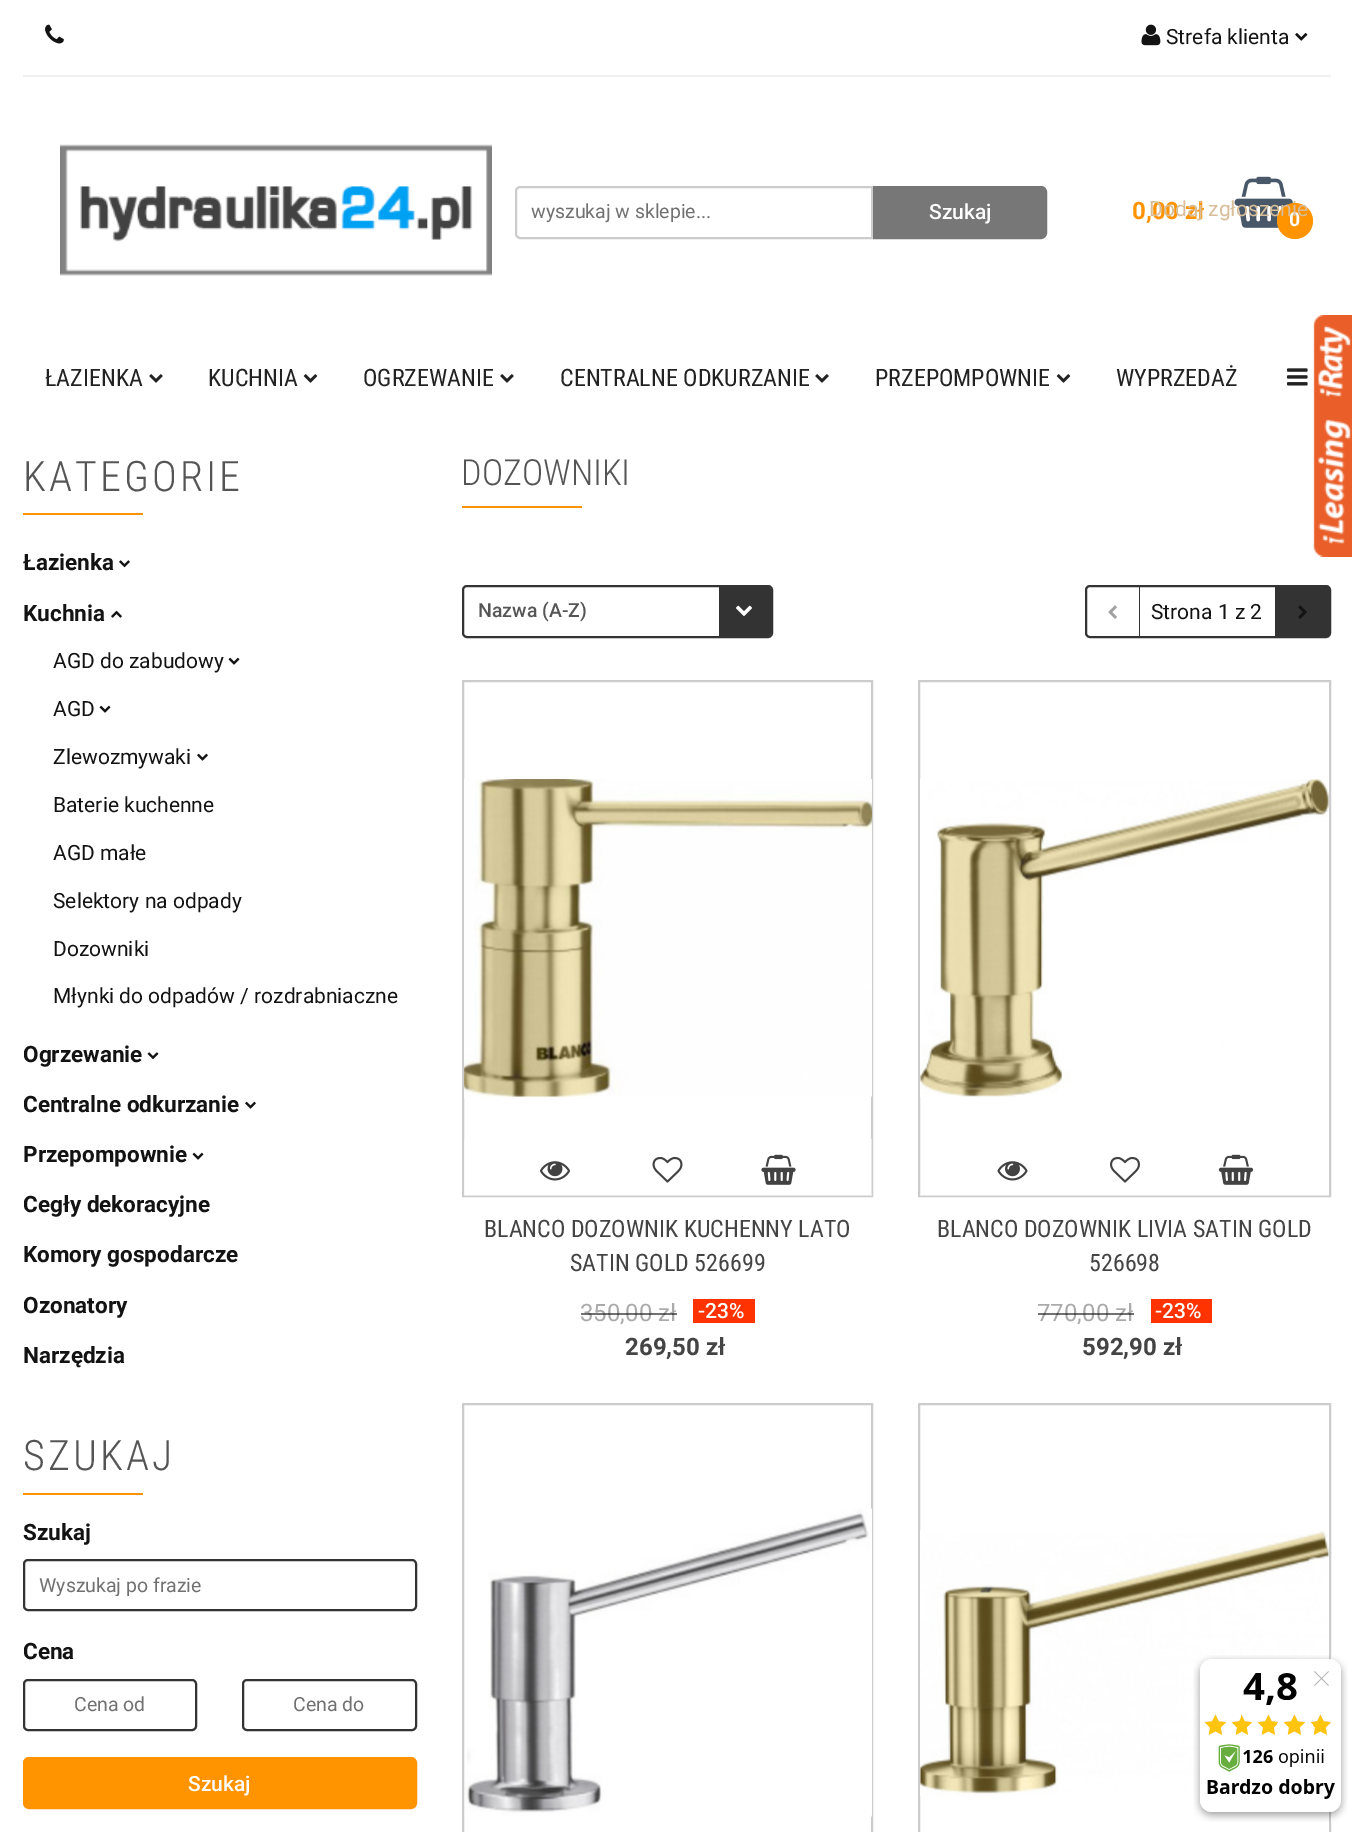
%!PS-Adobe-3.0
%%BoundingBox: 0 0 1352 1832
%%LanguageLevel: 3
%%Pages: 1
%%EndComments
%%BeginProlog
/setink { dup -16 bitshift 255 div exch dup -8 bitshift 255 and 255 div exch 255 and 255 div setrgbcolor } def
/usefont { [ exch dup neg 0 0 3 -1 roll 0 0 ] selectfont } def
/setalpha { dup .setfillconstantalpha .setstrokeconstantalpha } def
/disc { newpath 0 360 arc closepath } def
/rrect { 5 dict begin { /r /h /w /y /x } { exch def } forall
  x r add y moveto x w add y 2 copy h add r arct x w add y h add x 1 index r arct
  x y h add x y r arct x y 2 copy exch w add exch r arct closepath end } def
/drawimage { 5 dict begin { /h /w /y /x /name } { exch def } forall
  gsave x y translate w h scale
  w h 8 [w 0 0 h 0 0] name (r) file false 3 colorimage grestore end } def
%%EndProlog
%%BeginSetup
<< /PageSize [1352 1832] /PageUsesTransparency true >> setpagedevice
%%EndSetup
%%Page: 1 1
0 .pushpdf14devicefilter
0 1832 translate 1 -1 scale
4 setmiterlimit
16#FFFFFF setink
0 0 1352 1832 rectfill
16#EFEFEF setink
23 75 1308 2 rectfill
(img1.raw) 45 24 19 20 drawimage
(img2.raw) 1141 24 20 22 drawimage
/Roboto-Regular 21 usefont
16#131313 setink
1166 44 moveto (Strefa klienta) show
(img3.raw) 1295 33 13 8 drawimage
/Roboto-Bold 24 usefont
16#FF9300 setink
1132 219 moveto (0,00 zł) show
(img5.raw) 1234 176 59 52 drawimage
1295 221 18 disc fill
/Roboto-Bold 19.5 usefont
16#FFFFFF setink
1289 226 moveto (0) show
/Roboto-Regular 21 usefont
16#D7BD98 setink
1149 216 moveto (Dodaj zgłoszenie) show
(img4.raw) 60 144 432 132 drawimage
16#CCCCCC setink
2 setlinewidth
520 187 moveto 872 187 lineto 872 238 lineto 520 238 lineto 518 238 516 236 516 234 curveto 516 191 lineto 516 189 518 187 520 187 curveto closepath stroke
/Roboto-Regular 19.5 usefont
16#717171 setink
531 218 moveto (wyszukaj w sklepie...) show
16#777777 setink
874.5 187.5 moveto 1041 187.5 lineto 1043.5 187.5 1045.5 189.5 1045.5 192 curveto 1045.5 233 lineto 1045.5 235.5 1043.5 237.5 1041 237.5 curveto 874.5 237.5 lineto closepath gsave fill grestore
3 setlinewidth
stroke
/Roboto-Medium 21 usefont
16#FFFFFF setink
929 219 moveto (Szukaj) show
/RobotoCondensed-Regular 24 usefont
16#222222 setink
45 386 moveto (ŁAZIENKA) show
(img6.raw) 149 374 14 9 drawimage
208 386 moveto (KUCHNIA) show
(img7.raw) 303 374 15 9 drawimage
363 386 moveto (OGRZEWANIE) show
(img6.raw) 500 374 14 9 drawimage
560 386 moveto (CENTRALNE ODKURZANIE) show
(img6.raw) 815 374 14 9 drawimage
875 386 moveto (PRZEPOMPOWNIE) show
(img7.raw) 1056 374 15 9 drawimage
1116 386 moveto (WYPRZEDAŻ) show
(img8.raw) 1287 368 21 18 drawimage
/RobotoCondensed-Light 42 usefont
16#555555 setink
23 491 moveto 3 0 (KATEGORIE) ashow
16#FF9300 setink
23 513 120 2 rectfill
/Roboto-Bold 22.5 usefont
16#131313 setink
23 570 moveto (Łazienka) show
(img9.raw) 119 560 11 8 drawimage
23 621 moveto (Kuchnia) show
(img10.raw) 111 610 11 8 drawimage
/Roboto-Regular 21 usefont
53 668 moveto (AGD do zabudowy) show
(img11.raw) 228 657 12 8 drawimage
53 716 moveto (AGD) show
(img11.raw) 99 705 12 8 drawimage
53 764 moveto (Zlewozmywaki) show
(img12.raw) 197 753 11 8 drawimage
[
    [(Baterie kuchenne) 53 812]
    [(AGD małe) 53 860]
    [(Selektory na odpady) 53 908]
    [(Dozowniki) 53 956]
    [(Młynki do odpadów / rozdrabniaczne) 53 1003]
] { aload pop moveto show } forall
/Roboto-Bold 22.5 usefont
23 1062 moveto (Ogrzewanie) show
(img13.raw) 147 1052 12 8 drawimage
23 1112 moveto (Centralne odkurzanie) show
(img12.raw) 245 1101 11 8 drawimage
23 1162 moveto (Przepompownie) show
(img11.raw) 192 1152 12 8 drawimage
[
    [(Cegły dekoracyjne) 23 1212]
    [(Komory gospodarcze) 23 1262]
    [(Ozonatory) 23 1313]
    [(Narzędzia) 23 1363]
] { aload pop moveto show } forall
/RobotoCondensed-Light 42 usefont
16#555555 setink
23 1470 moveto 3 0 (SZUKAJ) ashow
16#FF9300 setink
23 1493 120 2 rectfill
/Roboto-Bold 22.5 usefont
16#131313 setink
23 1540 moveto (Szukaj) show
16#333333 setink
2 setlinewidth
24 1560 392 50 4 rrect stroke
gsave
39 1574 362 22 rectclip
/Roboto-Regular 19.5 usefont
16#717171 setink
39 1592 moveto (Wyszukaj po frazie) show
grestore
16#131313 setink
23 1659 moveto (Cena) show
16#333333 setink
24 1680 172 50 4 rrect stroke
/Roboto-Regular 19.5 usefont
16#717171 setink
74 1711 moveto (Cena od) show
16#333333 setink
243 1680 173 50 4 rrect stroke
16#717171 setink
293 1711 moveto (Cena do) show
16#FF9300 setink
25.5 1759.5 389 47 3.5 rrect gsave fill grestore
5 setlinewidth
stroke
/Roboto-Medium 21 usefont
16#FFFFFF setink
188 1791 moveto (Szukaj) show
/RobotoCondensed-Light 36 usefont
16#555555 setink
461 485 moveto (DOZOWNIKI) show
16#FF9300 setink
462 506 120 2 rectfill
16#333333 setink
2 setlinewidth
463 586 309 51 4 rrect stroke
/Roboto-Medium 19.5 usefont
16#555555 setink
478 617 moveto (Nazwa \(A-Z\)) show
16#333333 setink
719 587 moveto 768 587 lineto 769.5 587 771 588.5 771 590 curveto 771 633 lineto 771 634.5 769.5 636 768 636 curveto 719 636 lineto closepath fill
(img14.raw) 736 605 16 11 drawimage
1086 586 244 51 4 rrect stroke
1139 587 1 49 rectfill
(img15.raw) 1108 605 9 14 drawimage
1275 587 54 49 rectfill
/Roboto-Regular 21 usefont
16#131313 setink
1151 619 moveto (Strona 1 z 2) show
(img16.raw) 1298 605 9 14 drawimage
16#CCCCCC setink
463 681 409 515 rectstroke
(img17.raw) 464 779 408 319 drawimage
0.5 setalpha
16#FFFFFF setink
464 1139 408 57 rectfill
1 setalpha
(img18.raw) 540 1161 30 20 drawimage
(img19.raw) 652 1156 31 27 drawimage
(img20.raw) 761 1154 35 31 drawimage
/RobotoCondensed-Regular 24 usefont
16#444444 setink
484 1237 moveto (BLANCO DOZOWNIK KUCHENNY LATO) show
570 1271 moveto (SATIN GOLD 526699) show
/Roboto-Regular 24 usefont
16#AAAAAA setink
580 1321 moveto (350,00 zł) show
0.6 setalpha
16#131313 setink
581 1313 96 2 rectfill
1 setalpha
16#FF3300 setink
693 1299 62 24 rectfill
/Roboto-Medium 21 usefont
16#FFFFFF setink
698 1318 moveto (-23%) show
/Roboto-Bold 24 usefont
16#444444 setink
625 1355 moveto (269,50 zł) show
16#CCCCCC setink
919 681 411 515 rectstroke
(img21.raw) 920 779 409 318 drawimage
0.5 setalpha
16#FFFFFF setink
920 1195 409 1 rectfill
1 setalpha
(img22.raw) 997 1161 31 20 drawimage
(img23.raw) 1110 1156 30 27 drawimage
(img24.raw) 1218 1154 36 31 drawimage
/RobotoCondensed-Regular 24 usefont
16#444444 setink
937 1237 moveto (BLANCO DOZOWNIK LIVIA SATIN GOLD) show
1089 1271 moveto (526698) show
/Roboto-Regular 24 usefont
16#AAAAAA setink
1037 1321 moveto (770,00 zł) show
0.6 setalpha
16#131313 setink
1038 1313 96 2 rectfill
1 setalpha
16#FF3300 setink
1151 1299 61 24 rectfill
/Roboto-Medium 21 usefont
16#FFFFFF setink
1155 1318 moveto (-23%) show
/Roboto-Bold 24 usefont
16#444444 setink
1082 1355 moveto (592,90 zł) show
16#CCCCCC setink
463 1404 409 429 rectstroke
(img25.raw) 465 1508 407 309 drawimage
919 1404 411 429 rectstroke
(img26.raw) 920 1530 409 266 drawimage
(img27.raw) 1313 315 39 242 drawimage
(img28.raw) 1193 1655 155 167 drawimage
.poppdf14devicefilter showpage
%%EOF
